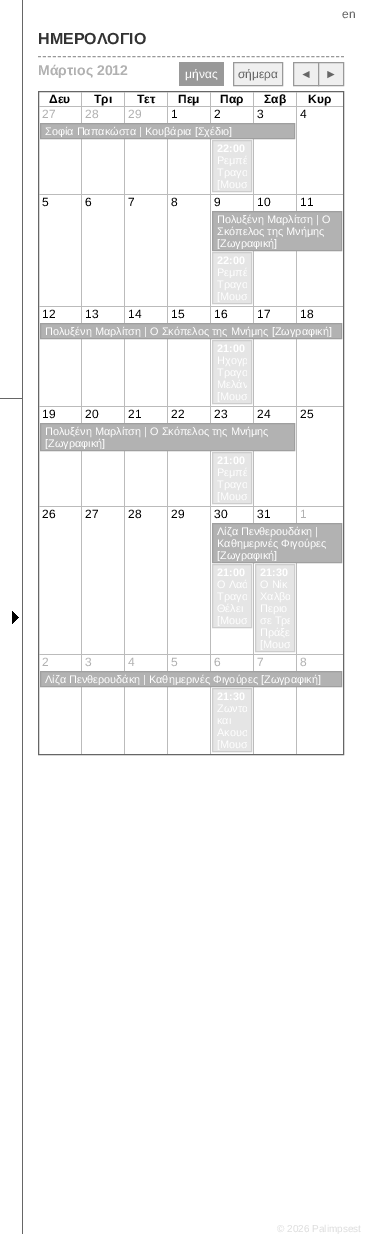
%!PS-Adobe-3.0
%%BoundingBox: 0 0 366 1234
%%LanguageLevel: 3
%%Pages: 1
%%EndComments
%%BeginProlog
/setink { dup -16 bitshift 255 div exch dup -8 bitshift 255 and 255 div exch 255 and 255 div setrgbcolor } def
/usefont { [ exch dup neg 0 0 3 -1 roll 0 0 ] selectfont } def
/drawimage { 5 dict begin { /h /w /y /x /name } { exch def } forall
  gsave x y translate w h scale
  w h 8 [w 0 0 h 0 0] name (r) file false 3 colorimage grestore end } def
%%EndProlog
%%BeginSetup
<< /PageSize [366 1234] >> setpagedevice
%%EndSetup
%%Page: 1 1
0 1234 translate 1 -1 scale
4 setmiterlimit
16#FFFFFF setink
0 0 366 1234 rectfill
16#666666 setink
22 0 1 1234 rectfill
0 398 22 1 rectfill
(img1.raw) 12 611 7 13 drawimage
/LiberationSans-Regular 12 usefont
342 18 moveto (en) show
/LiberationSans-Bold 16 usefont
16#333333 setink
38 44 moveto (ΗΜΕΡΟΛΟΓΙΟ) show
16#999999 setink
[3 1.97] 0 setdash
38 56.5 moveto 344 56.5 lineto stroke
/LiberationSans-Bold 14 usefont
16#B1B1B1 setink
38 75 moveto (Μάρτιος 2012) show
16#999999 setink
179 62 45 24 rectfill
/LiberationSans-Regular 12 usefont
16#FFFFFF setink
185 78 moveto (μήνας) show
16#EFEFEF setink
233.5 62.5 moveto 282.5 62.5 lineto 282.5 85.5 lineto 233.5 85.5 lineto closepath gsave fill grestore
16#999999 setink
[] 0 setdash
stroke
16#666666 setink
238 78 moveto (σήμερα) show
16#EFEFEF setink
293.5 62.5 moveto 318.5 62.5 lineto 318.5 85.5 lineto 293.5 85.5 lineto closepath gsave fill grestore
16#999999 setink
stroke
16#666666 setink
300 78 moveto (◄) show
16#EFEFEF setink
318.5 62.5 moveto 343.5 62.5 lineto 343.5 85.5 lineto 318.5 85.5 lineto closepath gsave fill grestore
16#999999 setink
stroke
16#666666 setink
325 78 moveto (►) show
38.5 91.5 305 663 rectstroke
16#BBBBBB setink
81 92 1 14 rectfill
/LiberationSans-Bold 12 usefont
16#000000 setink
49 103 moveto (Δευ) show
16#BBBBBB setink
124 92 1 14 rectfill
16#000000 setink
94 103 moveto (Τρι) show
16#BBBBBB setink
167 92 1 14 rectfill
16#000000 setink
137 103 moveto (Τετ) show
16#BBBBBB setink
210 92 1 14 rectfill
16#000000 setink
178 103 moveto (Πεμ) show
16#BBBBBB setink
253 92 1 14 rectfill
16#000000 setink
220 103 moveto (Παρ) show
16#BBBBBB setink
296 92 1 14 rectfill
16#000000 setink
264 103 moveto (Σαβ) show
308 103 moveto (Κυρ) show
[
    [39 106 304 1 16#BBBBBB]
    [81 106 1 648 16#BBBBBB]
    [39 194 43 1 16#BBBBBB]
] { aload pop setink rectfill } forall
/LiberationSans-Regular 12 usefont
16#B1B1B1 setink
42 118 moveto (27) show
16#BBBBBB setink
124 106 1 648 rectfill
82 194 43 1 rectfill
16#B1B1B1 setink
85 118 moveto (28) show
16#BBBBBB setink
167 106 1 648 rectfill
125 194 43 1 rectfill
16#B1B1B1 setink
128 118 moveto (29) show
16#BBBBBB setink
210 106 1 648 rectfill
168 194 43 1 rectfill
16#000000 setink
171 118 moveto (1) show
16#BBBBBB setink
253 106 1 648 rectfill
211 194 43 1 rectfill
16#000000 setink
214 118 moveto (2) show
16#BBBBBB setink
296 106 1 648 rectfill
254 194 89 1 rectfill
16#000000 setink
257 118 moveto (3) show
300 118 moveto (4) show
16#BBBBBB setink
39 306 304 1 rectfill
16#000000 setink
[
    [(5) 42 206]
    [(6) 85 206]
    [(7) 128 206]
    [(8) 171 206]
    [(9) 214 206]
    [(10) 257 206]
    [(11) 300 206]
] { aload pop moveto show } forall
16#BBBBBB setink
39 406 304 1 rectfill
16#000000 setink
[
    [(12) 42 318]
    [(13) 85 318]
    [(14) 128 318]
    [(15) 171 318]
    [(16) 214 318]
    [(17) 257 318]
    [(18) 300 318]
] { aload pop moveto show } forall
16#BBBBBB setink
39 506 304 1 rectfill
16#000000 setink
[
    [(19) 42 418]
    [(20) 85 418]
    [(21) 128 418]
    [(22) 171 418]
    [(23) 214 418]
    [(24) 257 418]
    [(25) 300 418]
] { aload pop moveto show } forall
16#BBBBBB setink
39 654 304 1 rectfill
16#000000 setink
[
    [(26) 42 518]
    [(27) 85 518]
    [(28) 128 518]
    [(29) 171 518]
    [(30) 214 518]
    [(31) 257 518]
] { aload pop moveto show } forall
16#B1B1B1 setink
[
    [(1) 300 518]
    [(2) 42 666]
    [(3) 85 666]
    [(4) 128 666]
    [(5) 171 666]
    [(6) 214 666]
    [(7) 257 666]
    [(8) 300 666]
] { aload pop moveto show } forall
16#B2B2B2 setink
40.5 123.5 moveto 294.5 123.5 lineto 294.5 138.5 lineto 40.5 138.5 lineto closepath gsave fill grestore
16#9F9F9F setink
stroke
gsave
45 125 245 12 rectclip
/LiberationSans-Regular 10.9 usefont
16#FFFFFF setink
45 135 moveto (Σοφία Παπακώστα | Κουβάρια [Σχέδιο]) show
grestore
16#E5E5E5 setink
212.5 140.5 moveto 251.5 140.5 lineto 251.5 191.5 lineto 212.5 191.5 lineto closepath gsave fill grestore
16#CDCDCD setink
stroke
/LiberationSans-Bold 10.9 usefont
16#FFFFFF setink
217 152 moveto (22:00) show
gsave
217 142 30 48 rectclip
/LiberationSans-Regular 10.9 usefont
[
    [(Ρεμπέ) 217 164]
    [(Τραγο) 217 176]
    [([Μουσ) 217 188]
] { aload pop moveto show } forall
grestore
16#B2B2B2 setink
212.5 211.5 moveto 341.5 211.5 lineto 341.5 250.5 lineto 212.5 250.5 lineto closepath gsave fill grestore
16#9F9F9F setink
stroke
/LiberationSans-Regular 10.9 usefont
16#FFFFFF setink
217 223 moveto (Πολυξένη Μαρλίτση | Ο) show
217 235 moveto (Σκόπελος της Μνήμης) show
gsave
217 213 120 36 rectclip
217 247 moveto ([Ζωγραφική]) show
grestore
16#E5E5E5 setink
212.5 252.5 moveto 251.5 252.5 lineto 251.5 303.5 lineto 212.5 303.5 lineto closepath gsave fill grestore
16#CDCDCD setink
stroke
/LiberationSans-Bold 10.9 usefont
16#FFFFFF setink
217 264 moveto (22:00) show
gsave
217 254 30 48 rectclip
/LiberationSans-Regular 10.9 usefont
[
    [(Ρεμπέ) 217 276]
    [(Τραγο) 217 288]
    [([Μουσ) 217 300]
] { aload pop moveto show } forall
grestore
16#B2B2B2 setink
40.5 323.5 moveto 341.5 323.5 lineto 341.5 338.5 lineto 40.5 338.5 lineto closepath gsave fill grestore
16#9F9F9F setink
stroke
gsave
45 325 292 12 rectclip
/LiberationSans-Regular 10.9 usefont
16#FFFFFF setink
45 335 moveto (Πολυξένη Μαρλίτση | Ο Σκόπελος της Μνήμης [Ζωγραφική]) show
grestore
16#E5E5E5 setink
212.5 340.5 moveto 251.5 340.5 lineto 251.5 403.5 lineto 212.5 403.5 lineto closepath gsave fill grestore
16#CDCDCD setink
stroke
16#FFFFFF setink
217 352 moveto (21:00) show
gsave
217 342 30 60 rectclip
/LiberationSans-Regular 10.9 usefont
[
    [(Ηχογρ) 217 364]
    [(Τραγο) 217 376]
    [(Μελάν) 217 388]
    [([Μουσ) 217 400]
] { aload pop moveto show } forall
grestore
16#B2B2B2 setink
40.5 423.5 moveto 294.5 423.5 lineto 294.5 450.5 lineto 40.5 450.5 lineto closepath gsave fill grestore
16#9F9F9F setink
stroke
/LiberationSans-Regular 10.9 usefont
16#FFFFFF setink
45 435 moveto (Πολυξένη Μαρλίτση | Ο Σκόπελος της Μνήμης) show
gsave
45 425 245 24 rectclip
45 447 moveto ([Ζωγραφική]) show
grestore
16#E5E5E5 setink
212.5 452.5 moveto 251.5 452.5 lineto 251.5 503.5 lineto 212.5 503.5 lineto closepath gsave fill grestore
16#CDCDCD setink
stroke
/LiberationSans-Bold 10.9 usefont
16#FFFFFF setink
217 464 moveto (21:00) show
gsave
217 454 30 48 rectclip
/LiberationSans-Regular 10.9 usefont
[
    [(Ρεμπέ) 217 476]
    [(Τραγο) 217 488]
    [([Μουσ) 217 500]
] { aload pop moveto show } forall
grestore
16#B2B2B2 setink
212.5 523.5 moveto 341.5 523.5 lineto 341.5 562.5 lineto 212.5 562.5 lineto closepath gsave fill grestore
16#9F9F9F setink
stroke
/LiberationSans-Regular 10.9 usefont
16#FFFFFF setink
217 535 moveto (Λίζα Πενθερουδάκη |) show
217 547 moveto (Καθημερινές Φιγούρες) show
gsave
217 525 120 36 rectclip
217 559 moveto ([Ζωγραφική]) show
grestore
16#E5E5E5 setink
212.5 564.5 moveto 251.5 564.5 lineto 251.5 627.5 lineto 212.5 627.5 lineto closepath gsave fill grestore
16#CDCDCD setink
stroke
/LiberationSans-Bold 10.9 usefont
16#FFFFFF setink
217 576 moveto (21:00) show
gsave
217 566 30 60 rectclip
/LiberationSans-Regular 10.9 usefont
217 588 moveto (Ο Λαό) show
217 600 moveto (Τραγο) show
grestore
/LiberationSans-Regular 10.9 usefont
217 612 moveto (Θέλει) show
gsave
217 566 30 60 rectclip
217 624 moveto ([Μουσ) show
grestore
16#E5E5E5 setink
255.5 564.5 moveto 294.5 564.5 lineto 294.5 651.5 lineto 255.5 651.5 lineto closepath gsave fill grestore
16#CDCDCD setink
stroke
/LiberationSans-Bold 10.9 usefont
16#FFFFFF setink
260 576 moveto (21:30) show
/LiberationSans-Regular 10.9 usefont
260 588 moveto (Ο Νίκ) show
gsave
260 566 30 84 rectclip
260 600 moveto (Χαλβα) show
grestore
260 612 moveto (Περιο) show
gsave
260 566 30 84 rectclip
260 624 moveto (σε Τρε) show
grestore
260 636 moveto (Πράξε) show
gsave
260 566 30 84 rectclip
260 648 moveto ([Μουσ) show
grestore
16#B2B2B2 setink
40.5 671.5 moveto 341.5 671.5 lineto 341.5 686.5 lineto 40.5 686.5 lineto closepath gsave fill grestore
16#9F9F9F setink
stroke
gsave
45 673 292 12 rectclip
16#FFFFFF setink
45 683 moveto (Λίζα Πενθερουδάκη | Καθημερινές Φιγούρες [Ζωγραφική]) show
grestore
16#E5E5E5 setink
212.5 688.5 moveto 251.5 688.5 lineto 251.5 751.5 lineto 212.5 751.5 lineto closepath gsave fill grestore
16#CDCDCD setink
stroke
/LiberationSans-Bold 10.9 usefont
16#FFFFFF setink
217 700 moveto (21:30) show
gsave
217 690 30 60 rectclip
/LiberationSans-Regular 10.9 usefont
217 712 moveto (Ζωντα) show
grestore
/LiberationSans-Regular 10.9 usefont
217 724 moveto (και) show
gsave
217 690 30 60 rectclip
217 736 moveto (Ακουσ) show
217 748 moveto ([Μουσ) show
grestore
/LiberationSans-Regular 10 usefont
16#DDDDDD setink
277 1232 moveto (© 2026 Palimpsest) show
showpage
%%EOF
